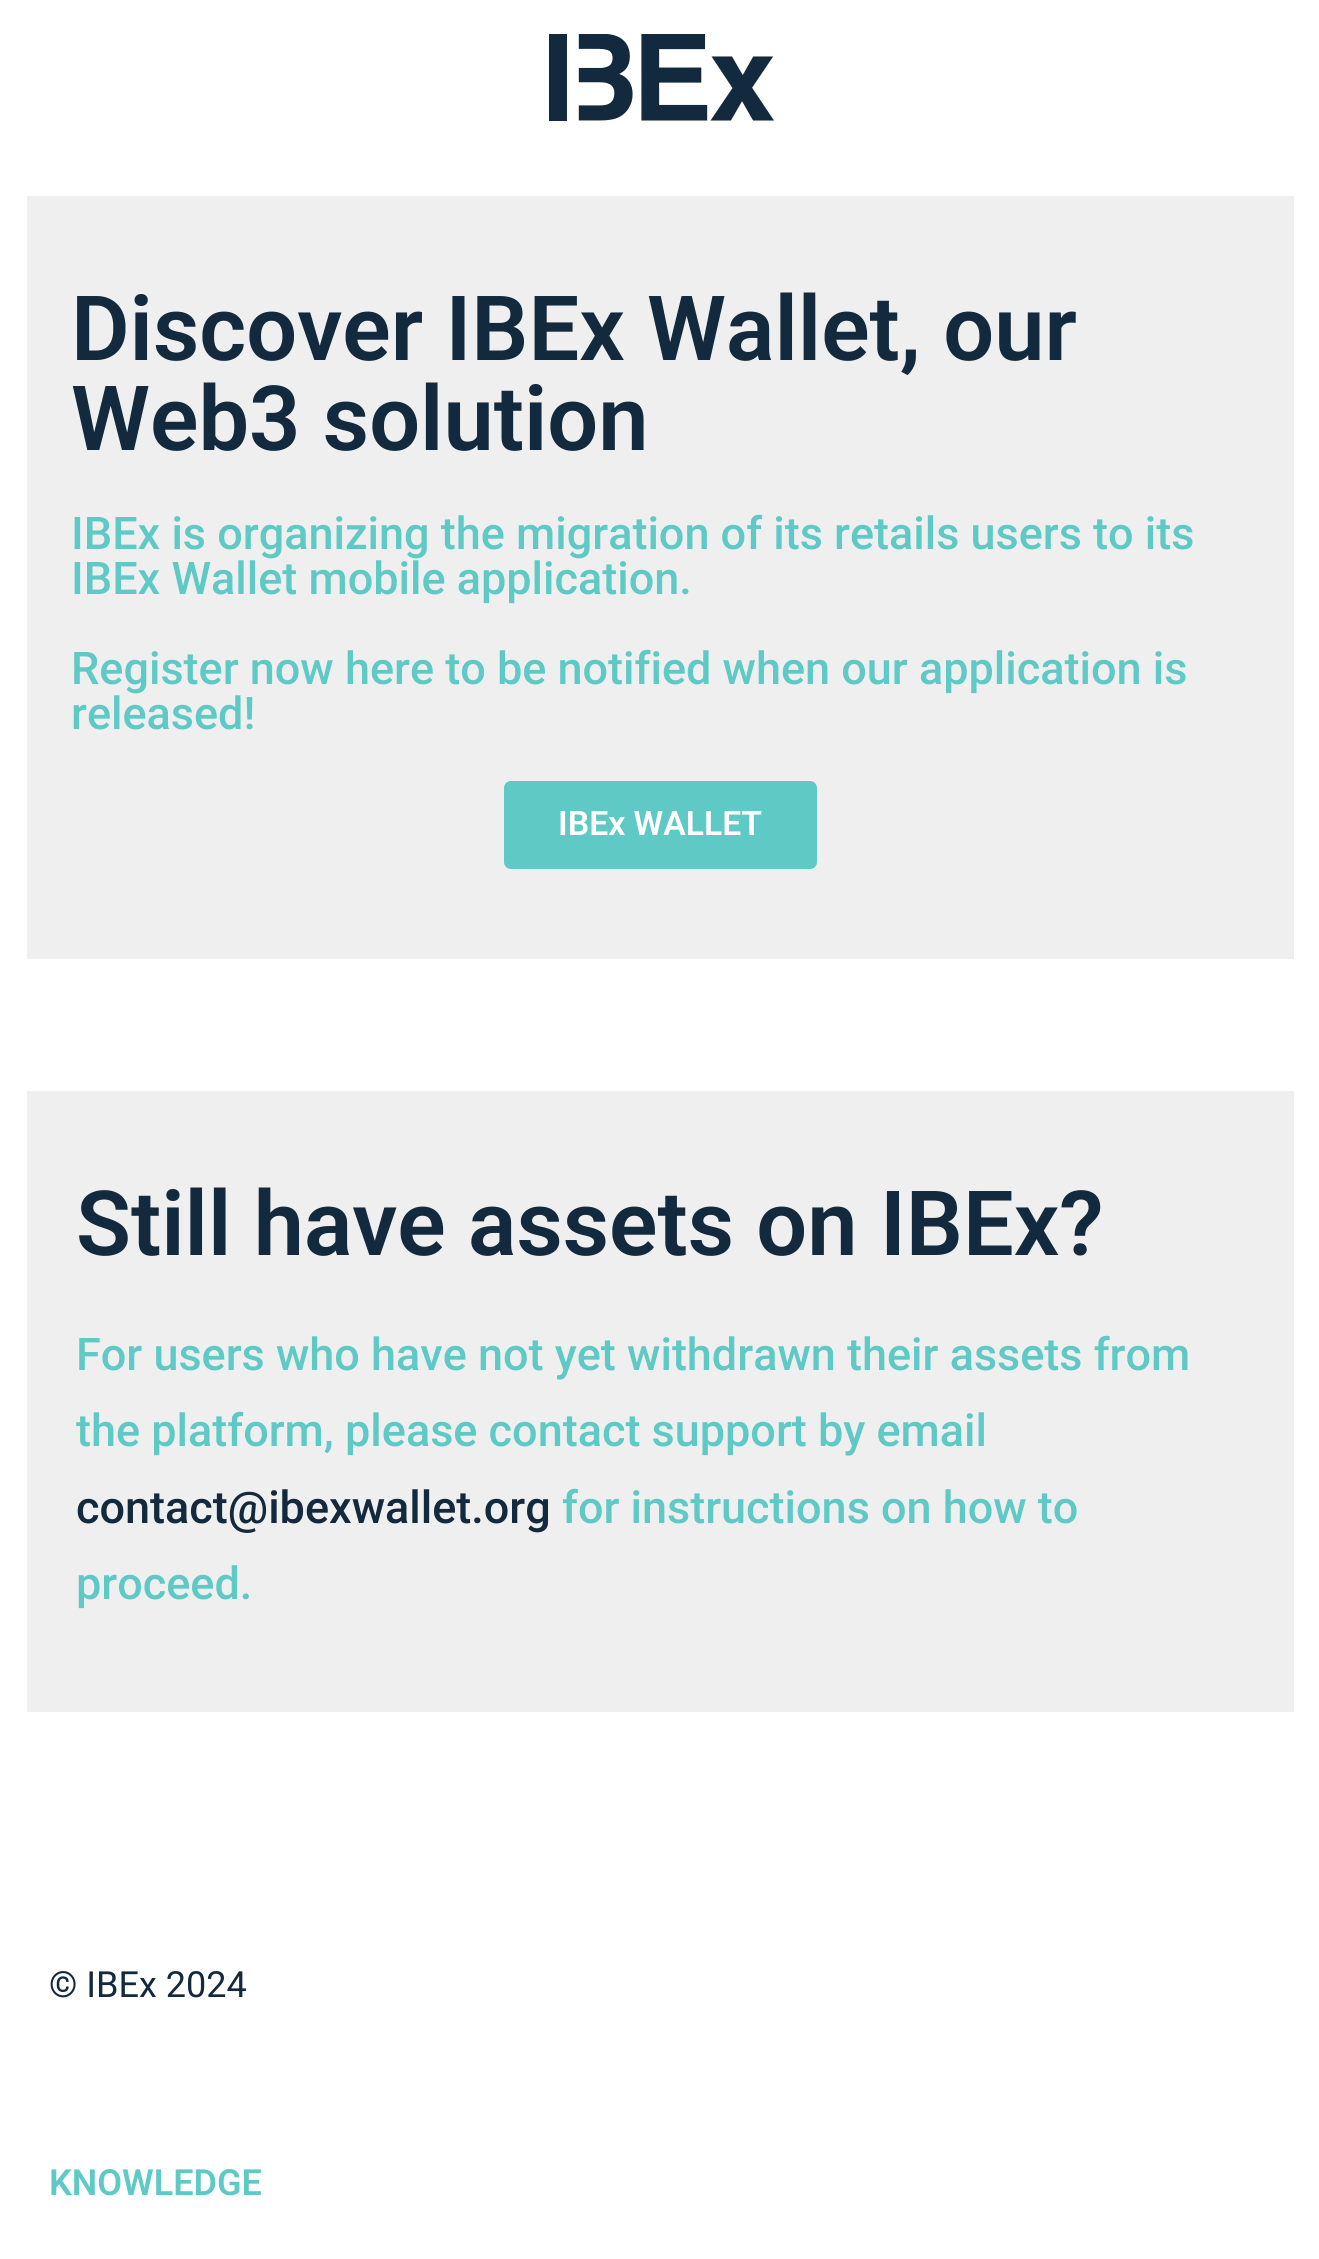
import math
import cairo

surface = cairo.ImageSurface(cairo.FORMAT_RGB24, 1319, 2259)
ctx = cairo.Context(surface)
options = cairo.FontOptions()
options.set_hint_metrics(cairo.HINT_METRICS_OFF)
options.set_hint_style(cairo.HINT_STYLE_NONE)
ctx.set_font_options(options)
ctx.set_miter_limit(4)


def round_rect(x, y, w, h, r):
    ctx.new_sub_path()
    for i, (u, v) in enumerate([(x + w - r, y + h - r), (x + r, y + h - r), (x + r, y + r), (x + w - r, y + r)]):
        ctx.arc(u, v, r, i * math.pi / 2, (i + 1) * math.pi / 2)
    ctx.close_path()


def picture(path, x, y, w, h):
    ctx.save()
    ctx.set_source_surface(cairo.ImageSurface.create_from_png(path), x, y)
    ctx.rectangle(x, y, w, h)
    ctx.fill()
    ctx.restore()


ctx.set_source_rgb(1, 1, 1)
ctx.paint()
picture("img1.png", 549, 34, 225, 87)
ctx.set_source_rgb(0.937, 0.937, 0.937)
ctx.rectangle(27, 196, 1267, 763)
ctx.fill()
ctx.select_font_face("Roboto SemiBold")
ctx.set_font_size(90)
ctx.set_source_rgb(0.075, 0.161, 0.239)
ctx.move_to(71, 360)
ctx.show_text("Discover IBEx Wallet, our")
ctx.move_to(71, 450)
ctx.show_text("Web3 solution")
ctx.select_font_face("Roboto Medium")
ctx.set_font_size(45)
ctx.set_source_rgb(0.369, 0.788, 0.773)
ctx.move_to(71, 549)
ctx.show_text("IBEx is organizing the migration of its retails users to its")
ctx.move_to(71, 594)
ctx.show_text("IBEx Wallet mobile application.")
ctx.move_to(71, 684)
ctx.show_text("Register now here to be notified when our application is")
ctx.move_to(71, 729)
ctx.show_text("released!")
round_rect(504, 781, 313, 88, 7)
ctx.fill()
ctx.select_font_face("Roboto SemiBold")
ctx.set_font_size(33.75)
ctx.set_source_rgb(1, 1, 1)
ctx.move_to(558, 835)
ctx.show_text("IBEx WALLET")
ctx.set_source_rgb(0.937, 0.937, 0.937)
ctx.rectangle(27, 1091, 1267, 621)
ctx.fill()
ctx.set_font_size(90)
ctx.set_source_rgb(0.075, 0.161, 0.239)
ctx.move_to(76, 1255)
ctx.show_text("Still have assets on IBEx?")
ctx.select_font_face("Roboto Medium")
ctx.set_font_size(45)
ctx.set_source_rgb(0.369, 0.788, 0.773)
ctx.move_to(76, 1370)
ctx.show_text("For users who have not yet withdrawn their assets from")
ctx.move_to(76, 1446)
ctx.show_text("the platform, please contact support by email")
ctx.set_source_rgb(0.075, 0.161, 0.239)
ctx.move_to(76, 1523)
ctx.show_text("contact@ibexwallet.org")
ctx.set_source_rgb(0.369, 0.788, 0.773)
ctx.move_to(562, 1523)
ctx.show_text("for instructions on how to")
ctx.move_to(76, 1599)
ctx.show_text("proceed.")
ctx.select_font_face("Roboto")
ctx.set_font_size(36)
ctx.set_source_rgb(0.075, 0.161, 0.239)
ctx.move_to(49, 1997)
ctx.show_text("© IBEx 2024")
ctx.select_font_face("Roboto SemiBold")
ctx.set_source_rgb(0.369, 0.788, 0.773)
ctx.move_to(49, 2195)
ctx.show_text("KNOWLEDGE")
surface.write_to_png("page.png")
